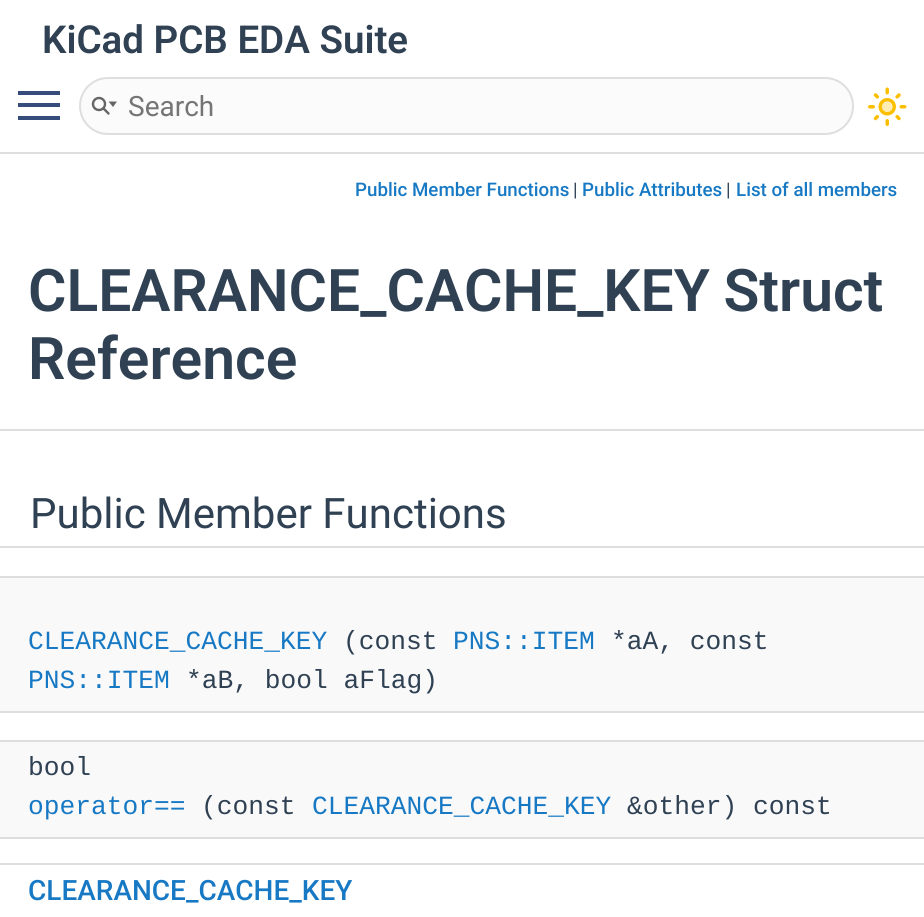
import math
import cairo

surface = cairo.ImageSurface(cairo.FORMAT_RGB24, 924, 917)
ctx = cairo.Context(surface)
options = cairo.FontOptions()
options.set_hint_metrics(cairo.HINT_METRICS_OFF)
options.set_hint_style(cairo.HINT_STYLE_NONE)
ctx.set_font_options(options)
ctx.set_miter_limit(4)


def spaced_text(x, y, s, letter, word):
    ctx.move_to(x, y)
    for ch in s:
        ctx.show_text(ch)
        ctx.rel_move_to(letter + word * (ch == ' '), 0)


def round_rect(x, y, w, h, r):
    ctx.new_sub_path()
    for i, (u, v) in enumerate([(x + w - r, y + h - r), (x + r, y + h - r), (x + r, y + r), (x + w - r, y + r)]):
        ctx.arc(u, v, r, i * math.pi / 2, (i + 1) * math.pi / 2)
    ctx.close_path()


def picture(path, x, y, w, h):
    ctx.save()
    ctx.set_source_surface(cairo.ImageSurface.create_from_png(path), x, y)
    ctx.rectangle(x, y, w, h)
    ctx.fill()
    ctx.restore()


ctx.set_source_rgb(1, 1, 1)
ctx.paint()
ctx.set_source_rgb(0.871, 0.871, 0.871)
ctx.rectangle(0, 152, 924, 2)
ctx.fill()
ctx.select_font_face("Roboto SemiBold")
ctx.set_font_size(38.5)
ctx.set_source_rgb(0.184, 0.255, 0.325)
ctx.move_to(42, 53)
ctx.show_text("KiCad PCB EDA Suite")
ctx.set_source_rgb(0.212, 0.302, 0.486)
ctx.rectangle(18, 103, 42, 4)
ctx.fill()
ctx.rectangle(18, 91, 42, 4)
ctx.fill()
ctx.rectangle(18, 116, 42, 4)
ctx.fill()
ctx.set_source_rgb(0.984, 0.984, 0.984)
round_rect(80, 78, 773, 56, 28)
ctx.fill_preserve()
ctx.set_source_rgb(0.871, 0.871, 0.871)
ctx.stroke()
ctx.arc(99, 104, 6, 0, 2 * math.pi)
ctx.set_source_rgb(0.396, 0.396, 0.396)
ctx.set_line_width(2.4)
ctx.stroke()
ctx.new_path()
ctx.move_to(108.5, 101.5)
ctx.line_to(113, 107)
ctx.line_to(117, 101.5)
ctx.close_path()
ctx.fill()
ctx.new_path()
ctx.move_to(103.5, 108.5)
ctx.line_to(108.5, 113.5)
ctx.set_line_cap(cairo.LINE_CAP_ROUND)
ctx.stroke()
ctx.select_font_face("Roboto")
ctx.set_font_size(28)
ctx.set_source_rgb(0.459, 0.459, 0.459)
ctx.move_to(128, 116)
ctx.show_text("Search")
picture("img1.png", 868, 87, 39, 39)
ctx.set_source_rgb(0.871, 0.871, 0.871)
ctx.rectangle(0, 429, 924, 2)
ctx.fill()
ctx.select_font_face("Roboto Medium")
ctx.set_font_size(18.75)
ctx.set_source_rgb(0.09, 0.475, 0.769)
ctx.move_to(355, 196)
ctx.show_text("Public Member Functions")
ctx.select_font_face("Roboto")
ctx.set_source_rgb(0.184, 0.255, 0.325)
ctx.move_to(573, 196)
ctx.show_text("|")
ctx.select_font_face("Roboto Medium")
ctx.set_source_rgb(0.09, 0.475, 0.769)
ctx.move_to(582, 196)
ctx.show_text("Public Attributes")
ctx.select_font_face("Roboto")
ctx.set_source_rgb(0.184, 0.255, 0.325)
ctx.move_to(726, 196)
ctx.show_text("|")
ctx.select_font_face("Roboto Medium")
ctx.set_source_rgb(0.09, 0.475, 0.769)
ctx.move_to(736, 196)
ctx.show_text("List of all members")
ctx.select_font_face("Roboto SemiBold")
ctx.set_font_size(58.75)
ctx.set_source_rgb(0.184, 0.255, 0.325)
spaced_text(28, 311, "CLEARANCE_CACHE_KEY Struct", 0, -1)
ctx.move_to(28, 379)
ctx.show_text("Reference")
ctx.set_source_rgb(0.871, 0.871, 0.871)
ctx.new_path()
ctx.move_to(-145, 478)
ctx.line_to(-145, 548)
ctx.line_to(719, 548)
ctx.line_to(719, 546)
ctx.line_to(30, 546)
ctx.line_to(30, 478)
ctx.close_path()
ctx.fill()
ctx.new_path()
ctx.move_to(205, 546)
ctx.line_to(205, 548)
ctx.line_to(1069, 548)
ctx.line_to(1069, 478)
ctx.line_to(894, 478)
ctx.line_to(894, 546)
ctx.close_path()
ctx.fill()
ctx.set_source_rgb(1, 1, 1)
ctx.rectangle(0, 478, 30, 68)
ctx.fill()
ctx.rectangle(894, 478, 30, 68)
ctx.fill()
ctx.select_font_face("Roboto")
ctx.set_font_size(42)
ctx.set_source_rgb(0.184, 0.255, 0.325)
ctx.move_to(30, 528)
ctx.show_text("Public Member Functions")
ctx.set_source_rgb(0.973, 0.976, 0.98)
ctx.rectangle(0, 578, 924, 133)
ctx.fill()
ctx.set_source_rgb(0.871, 0.871, 0.871)
ctx.rectangle(0, 576, 924, 2)
ctx.fill()
ctx.rectangle(0, 711, 924, 2)
ctx.fill()
ctx.select_font_face("Liberation Mono")
ctx.set_font_size(26.25)
ctx.set_source_rgb(0.09, 0.475, 0.769)
ctx.move_to(28, 649)
ctx.show_text("CLEARANCE_CACHE_KEY")
ctx.set_source_rgb(0.184, 0.255, 0.325)
ctx.move_to(343, 649)
ctx.show_text("(const")
ctx.set_source_rgb(0.09, 0.475, 0.769)
ctx.move_to(453, 649)
ctx.show_text("PNS::ITEM")
ctx.set_source_rgb(0.184, 0.255, 0.325)
ctx.move_to(611, 649)
ctx.show_text("*aA, const")
ctx.set_source_rgb(0.09, 0.475, 0.769)
ctx.move_to(28, 688)
ctx.show_text("PNS::ITEM")
ctx.set_source_rgb(0.184, 0.255, 0.325)
ctx.move_to(186, 688)
ctx.show_text("*aB, bool aFlag)")
ctx.set_source_rgb(0.973, 0.976, 0.98)
ctx.rectangle(0, 742, 924, 95)
ctx.fill()
ctx.set_source_rgb(0.871, 0.871, 0.871)
ctx.rectangle(0, 740, 924, 2)
ctx.fill()
ctx.set_source_rgb(0.184, 0.255, 0.325)
ctx.move_to(28, 775)
ctx.show_text("bool")
ctx.set_source_rgb(0.871, 0.871, 0.871)
ctx.rectangle(0, 837, 924, 2)
ctx.fill()
ctx.set_source_rgb(0.09, 0.475, 0.769)
ctx.move_to(28, 814)
ctx.show_text("operator==")
ctx.set_source_rgb(0.184, 0.255, 0.325)
ctx.move_to(201, 814)
ctx.show_text("(const")
ctx.set_source_rgb(0.09, 0.475, 0.769)
ctx.move_to(312, 814)
ctx.show_text("CLEARANCE_CACHE_KEY")
ctx.set_source_rgb(0.184, 0.255, 0.325)
ctx.move_to(627, 814)
ctx.show_text("&other) const")
ctx.set_source_rgb(0.871, 0.871, 0.871)
ctx.rectangle(0, 863, 924, 2)
ctx.fill()
ctx.select_font_face("Roboto Medium")
ctx.set_font_size(28)
ctx.set_source_rgb(0.09, 0.475, 0.769)
ctx.move_to(28, 900)
ctx.show_text("CLEARANCE_CACHE_KEY")
surface.write_to_png("page.png")
